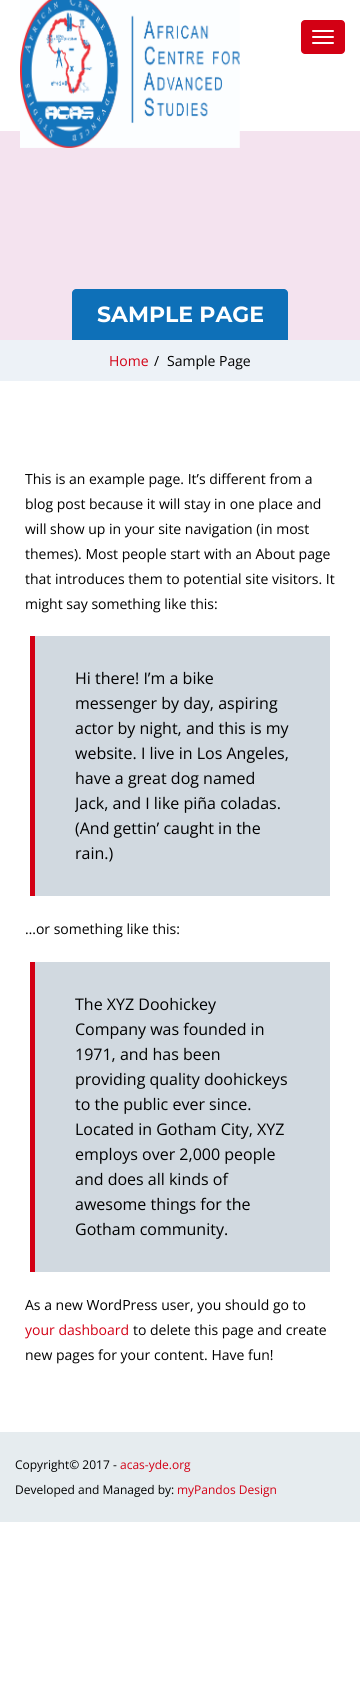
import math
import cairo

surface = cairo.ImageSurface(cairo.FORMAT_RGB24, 360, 1708)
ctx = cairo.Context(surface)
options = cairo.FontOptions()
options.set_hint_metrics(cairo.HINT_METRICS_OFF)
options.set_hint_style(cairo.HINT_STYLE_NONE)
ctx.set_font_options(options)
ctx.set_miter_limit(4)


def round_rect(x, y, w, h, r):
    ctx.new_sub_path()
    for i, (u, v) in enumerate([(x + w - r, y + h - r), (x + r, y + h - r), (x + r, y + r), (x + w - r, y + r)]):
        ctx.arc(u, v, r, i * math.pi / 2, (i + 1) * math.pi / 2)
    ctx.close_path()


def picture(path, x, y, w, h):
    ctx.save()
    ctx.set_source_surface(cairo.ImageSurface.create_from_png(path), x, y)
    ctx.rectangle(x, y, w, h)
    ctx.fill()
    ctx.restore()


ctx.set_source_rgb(1, 1, 1)
ctx.paint()
ctx.set_source_rgb(0.957, 0.89, 0.937)
ctx.rectangle(0, 131, 360, 209)
ctx.fill()
picture("img1.png", 20, 0, 220, 148)
ctx.set_source_rgb(0.827, 0, 0.082)
round_rect(301, 20, 44, 34, 4)
ctx.fill()
ctx.set_source_rgb(1, 1, 1)
round_rect(312, 30, 22, 2, 1)
ctx.fill()
round_rect(312, 36, 22, 2, 1)
ctx.fill()
round_rect(312, 42, 22, 2, 1)
ctx.fill()
ctx.set_source_rgb(0.055, 0.439, 0.722)
ctx.new_path()
ctx.move_to(76, 289)
ctx.line_to(284, 289)
ctx.curve_to(286, 289, 288, 291, 288, 293)
ctx.line_to(288, 340)
ctx.line_to(72, 340)
ctx.line_to(72, 293)
ctx.curve_to(72, 291, 74, 289, 76, 289)
ctx.close_path()
ctx.fill()
ctx.select_font_face("Montserrat", cairo.FONT_SLANT_NORMAL, cairo.FONT_WEIGHT_BOLD)
ctx.set_font_size(22)
ctx.set_source_rgb(1, 1, 1)
ctx.move_to(97, 322)
ctx.show_text("SAMPLE PAGE")
ctx.set_source_rgb(0.929, 0.949, 0.965)
ctx.rectangle(0, 340, 360, 41)
ctx.fill()
ctx.select_font_face("Open Sans")
ctx.set_font_size(14)
ctx.set_source_rgb(0.827, 0, 0.082)
ctx.move_to(109, 366)
ctx.show_text("Home")
ctx.set_source_rgb(0, 0, 0)
ctx.move_to(154, 366)
ctx.show_text("/")
ctx.move_to(167, 366)
ctx.show_text("Sample Page")
ctx.move_to(25, 484)
ctx.show_text("This is an example page. It’s different from a")
ctx.move_to(25, 509)
ctx.show_text("blog post because it will stay in one place and")
ctx.move_to(25, 534)
ctx.show_text("will show up in your site navigation (in most")
ctx.move_to(25, 559)
ctx.show_text("themes). Most people start with an About page")
ctx.move_to(25, 584)
ctx.show_text("that introduces them to potential site visitors. It")
ctx.move_to(25, 609)
ctx.show_text("might say something like this:")
ctx.set_source_rgb(0.82, 0.851, 0.878)
ctx.rectangle(35, 636, 295, 260)
ctx.fill()
ctx.set_source_rgb(0.827, 0, 0.082)
ctx.rectangle(30, 636, 5, 260)
ctx.fill()
ctx.set_font_size(16)
ctx.set_source_rgb(0, 0, 0)
ctx.move_to(75, 684)
ctx.show_text("Hi there! I’m a bike")
ctx.move_to(75, 709)
ctx.show_text("messenger by day, aspiring")
ctx.move_to(75, 734)
ctx.show_text("actor by night, and this is my")
ctx.move_to(75, 759)
ctx.show_text("website. I live in Los Angeles,")
ctx.move_to(75, 784)
ctx.show_text("have a great dog named")
ctx.save()
ctx.rectangle(75, 666, 215, 200)
ctx.clip()
ctx.move_to(75, 809)
ctx.show_text("Jack, and I like piña coladas.")
ctx.restore()
ctx.move_to(75, 834)
ctx.show_text("(And gettin’ caught in the")
ctx.move_to(75, 859)
ctx.show_text("rain.)")
ctx.set_font_size(14)
ctx.move_to(25, 934)
ctx.show_text("…or something like this:")
ctx.set_source_rgb(0.82, 0.851, 0.878)
ctx.rectangle(35, 962, 295, 310)
ctx.fill()
ctx.set_source_rgb(0.827, 0, 0.082)
ctx.rectangle(30, 962, 5, 310)
ctx.fill()
ctx.set_font_size(16)
ctx.set_source_rgb(0, 0, 0)
ctx.move_to(75, 1010)
ctx.show_text("The XYZ Doohickey")
ctx.move_to(75, 1035)
ctx.show_text("Company was founded in")
ctx.move_to(75, 1060)
ctx.show_text("1971, and has been")
ctx.move_to(75, 1085)
ctx.show_text("providing quality doohickeys")
ctx.move_to(75, 1110)
ctx.show_text("to the public ever since.")
ctx.move_to(75, 1135)
ctx.show_text("Located in Gotham City, XYZ")
ctx.move_to(75, 1160)
ctx.show_text("employs over 2,000 people")
ctx.move_to(75, 1185)
ctx.show_text("and does all kinds of")
ctx.move_to(75, 1210)
ctx.show_text("awesome things for the")
ctx.move_to(75, 1235)
ctx.show_text("Gotham community.")
ctx.set_font_size(14)
ctx.move_to(25, 1310)
ctx.show_text("As a new WordPress user, you should go to")
ctx.set_source_rgb(0.827, 0, 0.082)
ctx.move_to(25, 1335)
ctx.show_text("your dashboard")
ctx.set_source_rgb(0, 0, 0)
ctx.move_to(133, 1335)
ctx.show_text("to delete this page and create")
ctx.move_to(25, 1360)
ctx.show_text("new pages for your content. Have fun!")
ctx.set_source_rgb(0.902, 0.922, 0.937)
ctx.rectangle(0, 1432, 360, 90)
ctx.fill()
ctx.set_font_size(12)
ctx.set_source_rgb(0, 0, 0)
ctx.move_to(15, 1469)
ctx.show_text("Copyright© 2017 -")
ctx.set_source_rgb(0.827, 0, 0.082)
ctx.move_to(120, 1469)
ctx.show_text("acas-yde.org")
ctx.set_source_rgb(0, 0, 0)
ctx.move_to(15, 1494)
ctx.show_text("Developed and Managed by:")
ctx.set_source_rgb(0.827, 0, 0.082)
ctx.move_to(177, 1494)
ctx.show_text("myPandos Design")
surface.write_to_png("page.png")
